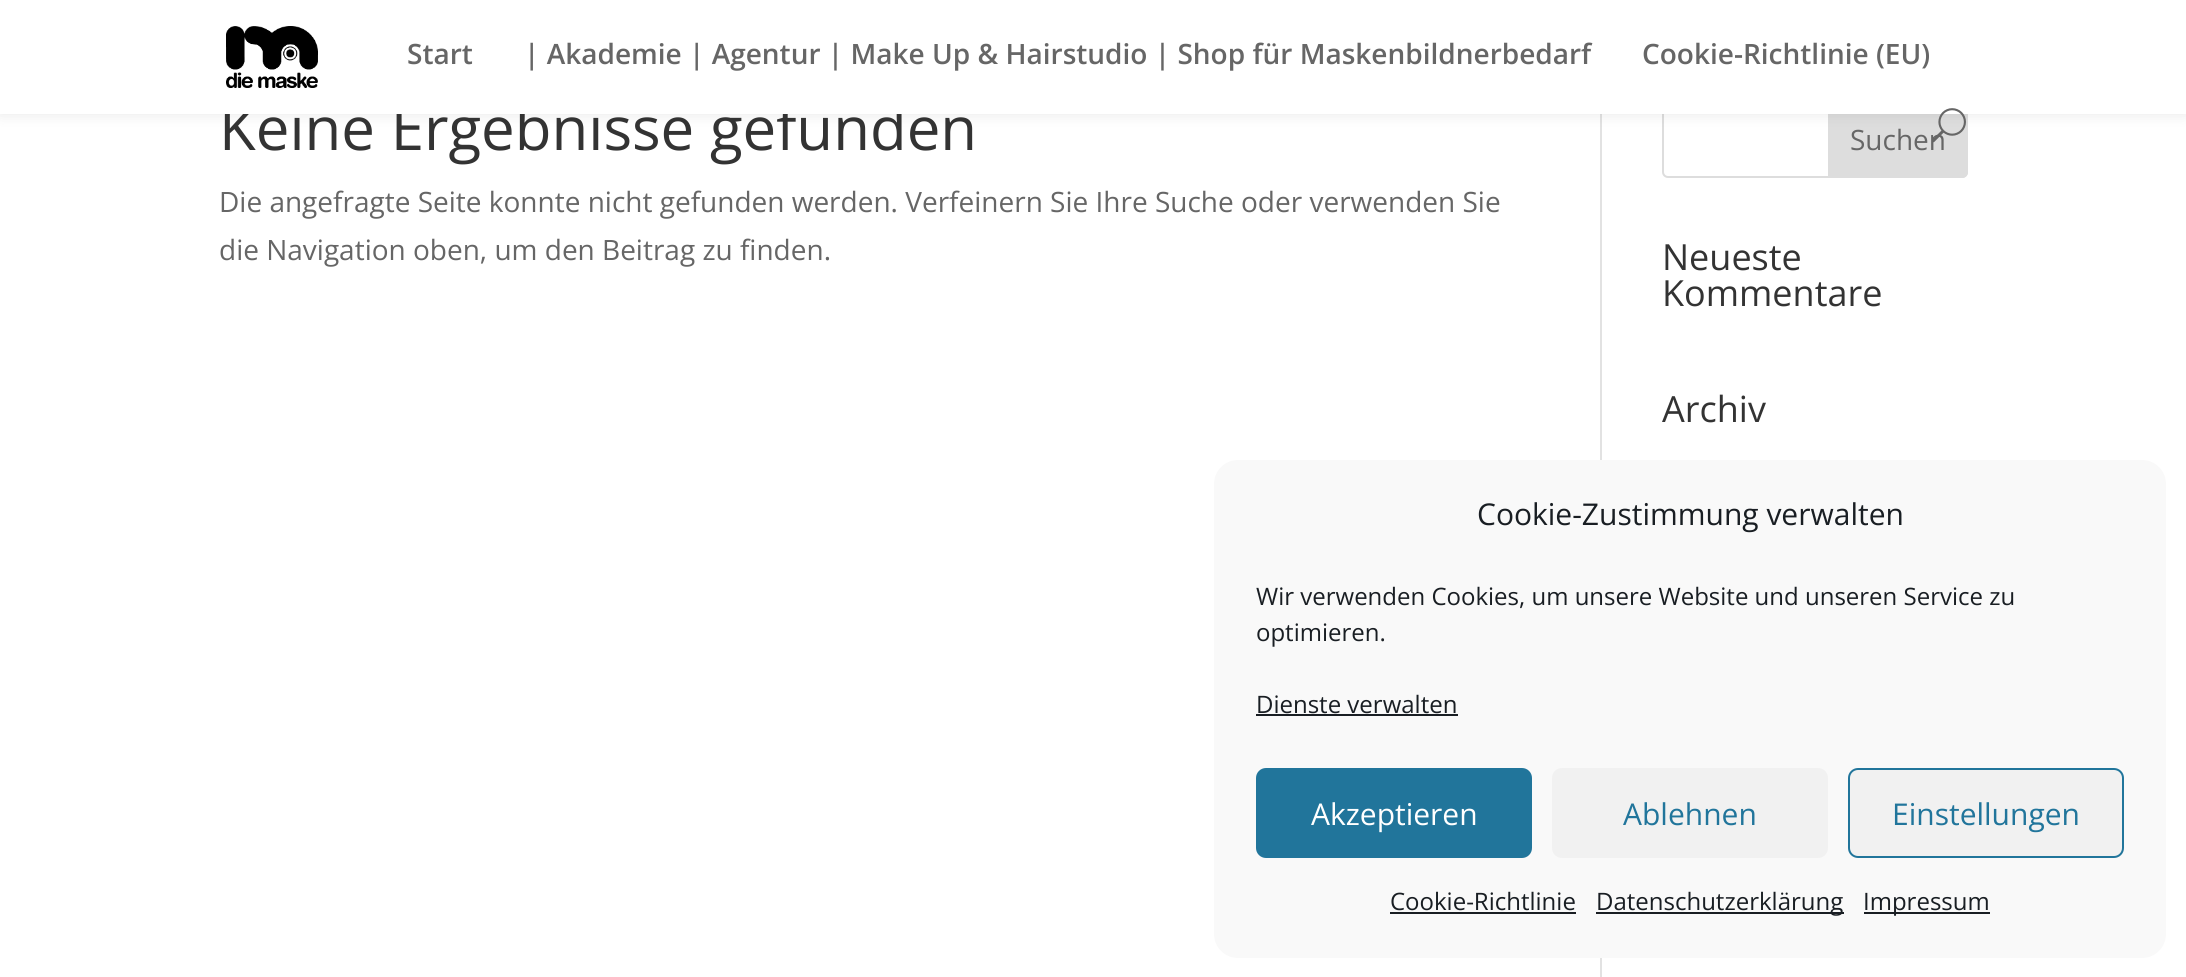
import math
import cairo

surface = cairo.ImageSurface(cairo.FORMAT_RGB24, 2186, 977)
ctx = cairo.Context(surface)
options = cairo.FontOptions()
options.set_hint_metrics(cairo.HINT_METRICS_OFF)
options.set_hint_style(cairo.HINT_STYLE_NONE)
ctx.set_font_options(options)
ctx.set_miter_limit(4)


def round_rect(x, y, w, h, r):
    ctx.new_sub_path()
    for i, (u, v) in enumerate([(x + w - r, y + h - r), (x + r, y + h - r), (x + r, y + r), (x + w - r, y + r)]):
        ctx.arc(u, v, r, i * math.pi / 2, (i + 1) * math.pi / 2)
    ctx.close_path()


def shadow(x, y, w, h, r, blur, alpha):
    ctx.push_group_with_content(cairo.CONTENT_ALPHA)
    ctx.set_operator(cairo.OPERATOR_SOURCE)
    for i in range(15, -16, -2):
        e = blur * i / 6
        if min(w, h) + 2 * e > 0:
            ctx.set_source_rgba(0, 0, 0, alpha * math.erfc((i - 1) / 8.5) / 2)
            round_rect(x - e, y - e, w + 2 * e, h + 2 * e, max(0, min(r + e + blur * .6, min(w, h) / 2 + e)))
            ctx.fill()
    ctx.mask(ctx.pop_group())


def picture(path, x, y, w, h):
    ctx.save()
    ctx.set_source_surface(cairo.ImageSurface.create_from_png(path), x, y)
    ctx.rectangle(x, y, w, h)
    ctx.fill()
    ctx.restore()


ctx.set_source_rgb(1, 1, 1)
ctx.paint()
round_rect(1663, 99, 304, 78, 5)
ctx.set_source_rgb(0.867, 0.867, 0.867)
ctx.stroke()
ctx.new_path()
ctx.move_to(1829, 99)
ctx.line_to(1962, 99)
ctx.curve_to(1965, 99, 1967, 101, 1967, 104)
ctx.line_to(1967, 172)
ctx.curve_to(1967, 175, 1965, 177, 1962, 177)
ctx.line_to(1829, 177)
ctx.close_path()
ctx.fill_preserve()
ctx.stroke()
ctx.set_source_rgb(0.886, 0.886, 0.886)
ctx.rectangle(1600, 114, 2, 863)
ctx.fill()
ctx.set_source_rgb(0, 0, 0)
shadow(0, 0, 2186, 114, 0, 7, 0.1)
ctx.select_font_face("Open Sans")
ctx.set_font_size(60)
ctx.set_source_rgb(0.2, 0.2, 0.2)
ctx.move_to(219, 150)
ctx.show_text("Keine Ergebnisse gefunden")
ctx.set_source_rgb(1, 1, 1)
ctx.rectangle(0, 0, 2186, 114)
ctx.fill()
picture("img1.png", 226, 26, 92, 62)
ctx.select_font_face("Open Sans SemiBold")
ctx.set_font_size(28)
ctx.set_source_rgb(0.4, 0.4, 0.4)
ctx.move_to(407, 64)
ctx.show_text("Start")
ctx.move_to(524, 64)
ctx.show_text("| Akademie | Agentur | Make Up & Hairstudio | Shop für Maskenbildnerbedarf")
ctx.move_to(1642, 64)
ctx.show_text("Cookie-Richtlinie (EU)")
ctx.select_font_face("Open Sans")
ctx.move_to(1850, 150)
ctx.show_text("Suchen")
picture("img2.png", 1933, 108, 33, 35)
ctx.move_to(219, 212)
ctx.show_text("Die angefragte Seite konnte nicht gefunden werden. Verfeinern Sie Ihre Suche oder verwenden Sie")
ctx.move_to(219, 260)
ctx.show_text("die Navigation oben, um den Beitrag zu finden.")
ctx.set_font_size(36)
ctx.set_source_rgb(0.2, 0.2, 0.2)
ctx.move_to(1662, 270)
ctx.show_text("Neueste")
ctx.move_to(1662, 306)
ctx.show_text("Kommentare")
ctx.move_to(1662, 422)
ctx.show_text("Archiv")
ctx.set_source_rgb(0.976, 0.976, 0.976)
round_rect(1214, 460, 952, 498, 24)
ctx.fill()
ctx.set_font_size(30)
ctx.set_source_rgb(0.098, 0.118, 0.137)
ctx.move_to(1477, 525)
ctx.show_text("Cookie-Zustimmung verwalten")
ctx.set_font_size(24)
ctx.move_to(1256, 605)
ctx.show_text("Wir verwenden Cookies, um unsere Website und unseren Service zu")
ctx.move_to(1256, 641)
ctx.show_text("optimieren.")
ctx.move_to(1256, 713)
ctx.show_text("Dienste verwalten")
ctx.rectangle(1256, 714, 202, 2)
ctx.fill()
ctx.set_source_rgb(0.129, 0.459, 0.608)
round_rect(1257, 769, 274, 88, 9)
ctx.fill_preserve()
ctx.stroke()
ctx.set_font_size(30)
ctx.set_source_rgb(1, 1, 1)
ctx.move_to(1311, 825)
ctx.show_text("Akzeptieren")
ctx.set_source_rgb(0.945, 0.945, 0.945)
round_rect(1552, 768, 276, 90, 10)
ctx.fill()
ctx.set_source_rgb(0.129, 0.459, 0.608)
ctx.move_to(1623, 825)
ctx.show_text("Ablehnen")
ctx.set_source_rgb(0.945, 0.945, 0.945)
round_rect(1849, 769, 274, 88, 9)
ctx.fill_preserve()
ctx.set_source_rgb(0.129, 0.459, 0.608)
ctx.stroke()
ctx.move_to(1892, 825)
ctx.show_text("Einstellungen")
ctx.set_font_size(24)
ctx.set_source_rgb(0.098, 0.118, 0.137)
ctx.move_to(1390, 910)
ctx.show_text("Cookie-Richtlinie")
ctx.rectangle(1390, 912, 186, 2)
ctx.fill()
ctx.rectangle(1596, 912, 248, 2)
ctx.fill()
ctx.move_to(1596, 910)
ctx.show_text("Datenschutzerklärung")
ctx.rectangle(1864, 912, 126, 2)
ctx.fill()
ctx.move_to(1863, 910)
ctx.show_text("Impressum")
surface.write_to_png("page.png")
